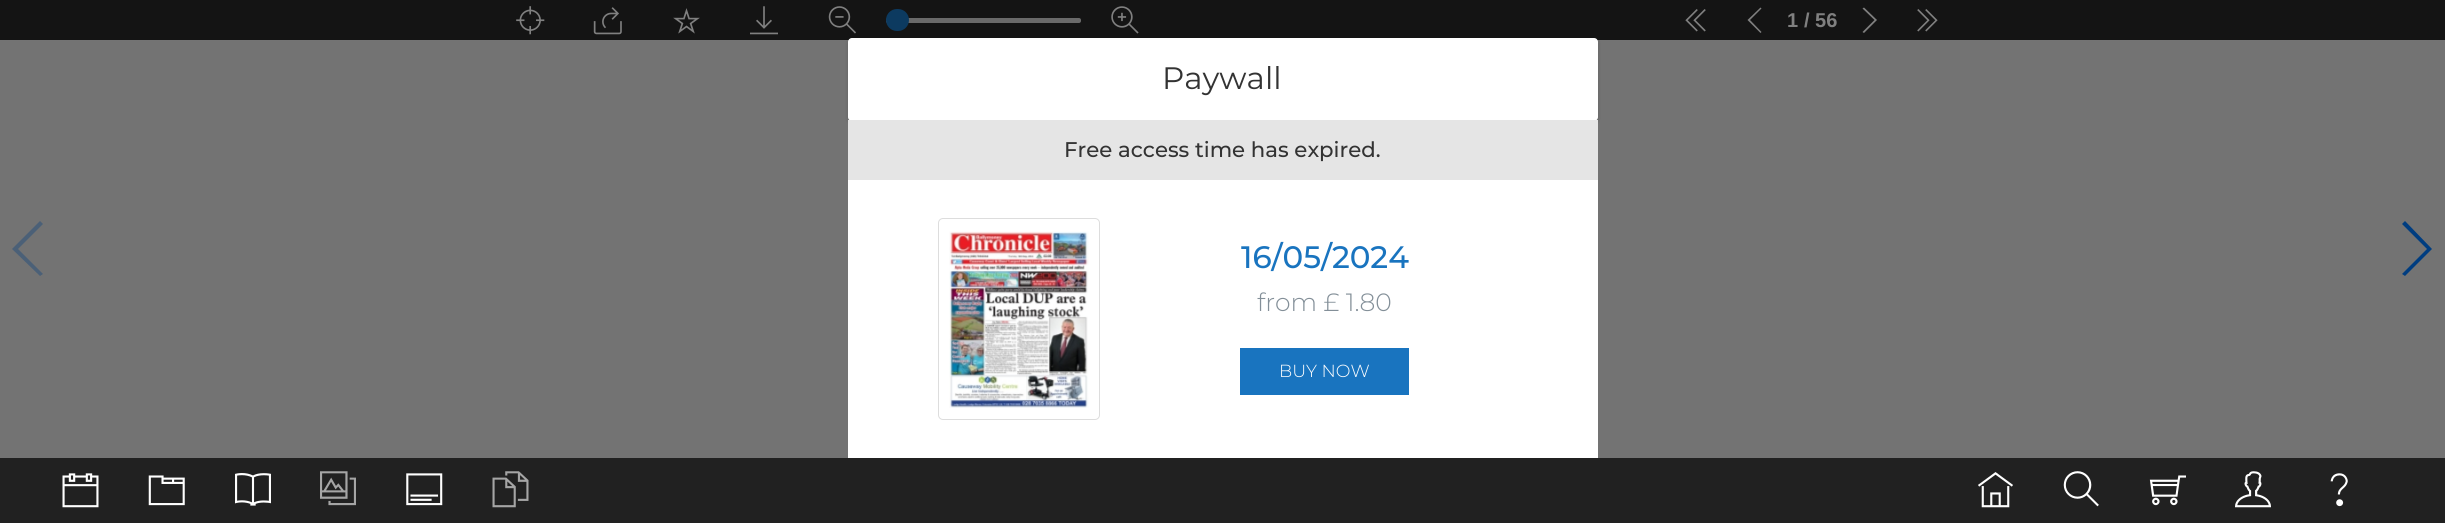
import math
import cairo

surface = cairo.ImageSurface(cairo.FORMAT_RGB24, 2445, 523)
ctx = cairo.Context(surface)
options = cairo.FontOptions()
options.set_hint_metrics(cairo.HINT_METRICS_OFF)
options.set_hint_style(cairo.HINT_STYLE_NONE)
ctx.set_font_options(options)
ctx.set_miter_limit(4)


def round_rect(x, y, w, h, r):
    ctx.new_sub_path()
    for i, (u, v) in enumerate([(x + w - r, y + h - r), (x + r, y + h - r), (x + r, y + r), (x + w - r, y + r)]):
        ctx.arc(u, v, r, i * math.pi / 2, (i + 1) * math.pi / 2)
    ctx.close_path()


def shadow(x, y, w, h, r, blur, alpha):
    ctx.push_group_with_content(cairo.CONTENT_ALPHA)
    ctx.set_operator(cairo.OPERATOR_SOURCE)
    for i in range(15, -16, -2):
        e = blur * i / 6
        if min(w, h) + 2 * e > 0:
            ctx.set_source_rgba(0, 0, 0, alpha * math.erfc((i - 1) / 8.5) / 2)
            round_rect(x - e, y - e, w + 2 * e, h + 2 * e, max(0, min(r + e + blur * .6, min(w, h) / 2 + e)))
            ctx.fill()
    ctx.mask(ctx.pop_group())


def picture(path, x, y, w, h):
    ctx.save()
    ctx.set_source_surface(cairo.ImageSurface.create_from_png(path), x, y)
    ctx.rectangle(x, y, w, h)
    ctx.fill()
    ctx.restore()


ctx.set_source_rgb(0.451, 0.451, 0.451)
ctx.paint()
ctx.set_source_rgb(0.082, 0.082, 0.082)
ctx.rectangle(0, 0, 2445, 40)
ctx.fill()
picture("img1.png", 516, 6, 29, 29)
picture("img2.png", 593, 7, 29, 28)
picture("img3.png", 673, 8, 27, 26)
picture("img4.png", 750, 6, 28, 29)
picture("img5.png", 828, 6, 28, 28)
ctx.set_source_rgb(0.416, 0.416, 0.416)
round_rect(886, 18, 195, 5, 2)
ctx.fill()
ctx.set_source_rgb(0.047, 0.227, 0.376)
round_rect(886, 9, 23, 22, 11)
ctx.fill()
picture("img6.png", 1111, 6, 28, 28)
picture("img7.png", 1685, 9, 21, 23)
ctx.set_source_rgb(0.502, 0.502, 0.502)
ctx.new_path()
ctx.move_to(1750, 20)
ctx.line_to(1761.5, 32)
ctx.line_to(1760.5, 33)
ctx.line_to(1747.5, 20)
ctx.line_to(1760.5, 7.5)
ctx.line_to(1761.5, 8.5)
ctx.close_path()
ctx.fill()
ctx.select_font_face("Liberation Sans", cairo.FONT_SLANT_NORMAL, cairo.FONT_WEIGHT_BOLD)
ctx.set_font_size(20)
ctx.move_to(1787, 27)
ctx.show_text("1")
ctx.move_to(1804, 27)
ctx.show_text("/ 56")
ctx.new_path()
ctx.move_to(1877, 20)
ctx.line_to(1864, 33)
ctx.line_to(1862.5, 32)
ctx.line_to(1874.5, 20)
ctx.line_to(1862.5, 8.5)
ctx.line_to(1864, 7.5)
ctx.close_path()
ctx.fill()
picture("img8.png", 1917, 9, 21, 23)
ctx.set_source_rgb(0, 0, 0)
shadow(848, 39, 750, 84, 4, 2, 0.15)
ctx.set_source_rgb(1, 1, 1)
round_rect(848, 38, 750, 83, 4)
ctx.fill()
ctx.set_source_rgb(0.898, 0.898, 0.898)
ctx.rectangle(848, 120, 750, 60)
ctx.fill()
ctx.select_font_face("Montserrat")
ctx.set_font_size(31)
ctx.set_source_rgb(0.2, 0.2, 0.2)
ctx.move_to(1162, 89)
ctx.show_text("Paywall")
ctx.select_font_face("Montserrat Medium")
ctx.set_font_size(21.25)
ctx.move_to(1064, 157)
ctx.show_text("Free access time has expired.")
ctx.set_source_rgb(1, 1, 1)
ctx.rectangle(848, 180, 750, 278)
ctx.fill()
round_rect(938.5, 218.5, 161, 201, 4.5)
ctx.set_source_rgb(0.867, 0.867, 0.867)
ctx.set_line_width(1)
ctx.stroke()
picture("img9.png", 949, 231, 140, 177)
ctx.set_font_size(31)
ctx.set_source_rgb(0.098, 0.455, 0.749)
ctx.move_to(1241, 268)
ctx.show_text("16/05/2024")
ctx.select_font_face("Montserrat Light")
ctx.set_font_size(25)
ctx.set_source_rgb(0.514, 0.561, 0.596)
ctx.move_to(1257, 311)
ctx.show_text("from £ 1.80")
ctx.set_source_rgb(0.098, 0.455, 0.749)
ctx.rectangle(1240, 348, 169, 47)
ctx.fill()
ctx.set_font_size(17.5)
ctx.set_source_rgb(1, 1, 1)
ctx.move_to(1279, 377)
ctx.show_text("BUY NOW")
ctx.set_source_rgb(0.294, 0.376, 0.467)
ctx.new_path()
ctx.move_to(12, 249)
ctx.line_to(40, 221)
ctx.line_to(43, 224)
ctx.line_to(18, 249)
ctx.line_to(43, 274)
ctx.line_to(40, 276)
ctx.close_path()
ctx.fill()
ctx.set_source_rgb(0, 0.239, 0.502)
ctx.new_path()
ctx.move_to(2432, 249)
ctx.line_to(2405, 276)
ctx.line_to(2402, 274)
ctx.line_to(2427, 249)
ctx.line_to(2402, 224)
ctx.line_to(2405, 221)
ctx.close_path()
ctx.fill()
ctx.set_source_rgb(0.129, 0.129, 0.129)
ctx.rectangle(0, 458, 2445, 65)
ctx.fill()
picture("img10.png", 62, 473, 37, 35)
picture("img11.png", 148, 475, 37, 31)
picture("img12.png", 235, 473, 36, 33)
picture("img13.png", 320, 471, 36, 35)
picture("img14.png", 406, 473, 37, 33)
picture("img15.png", 492, 471, 37, 37)
picture("img16.png", 1978, 472, 35, 36)
picture("img17.png", 2063, 471, 36, 36)
picture("img18.png", 2149, 475, 37, 31)
picture("img19.png", 2235, 471, 36, 37)
picture("img20.png", 2330, 473, 18, 34)
surface.write_to_png("page.png")
